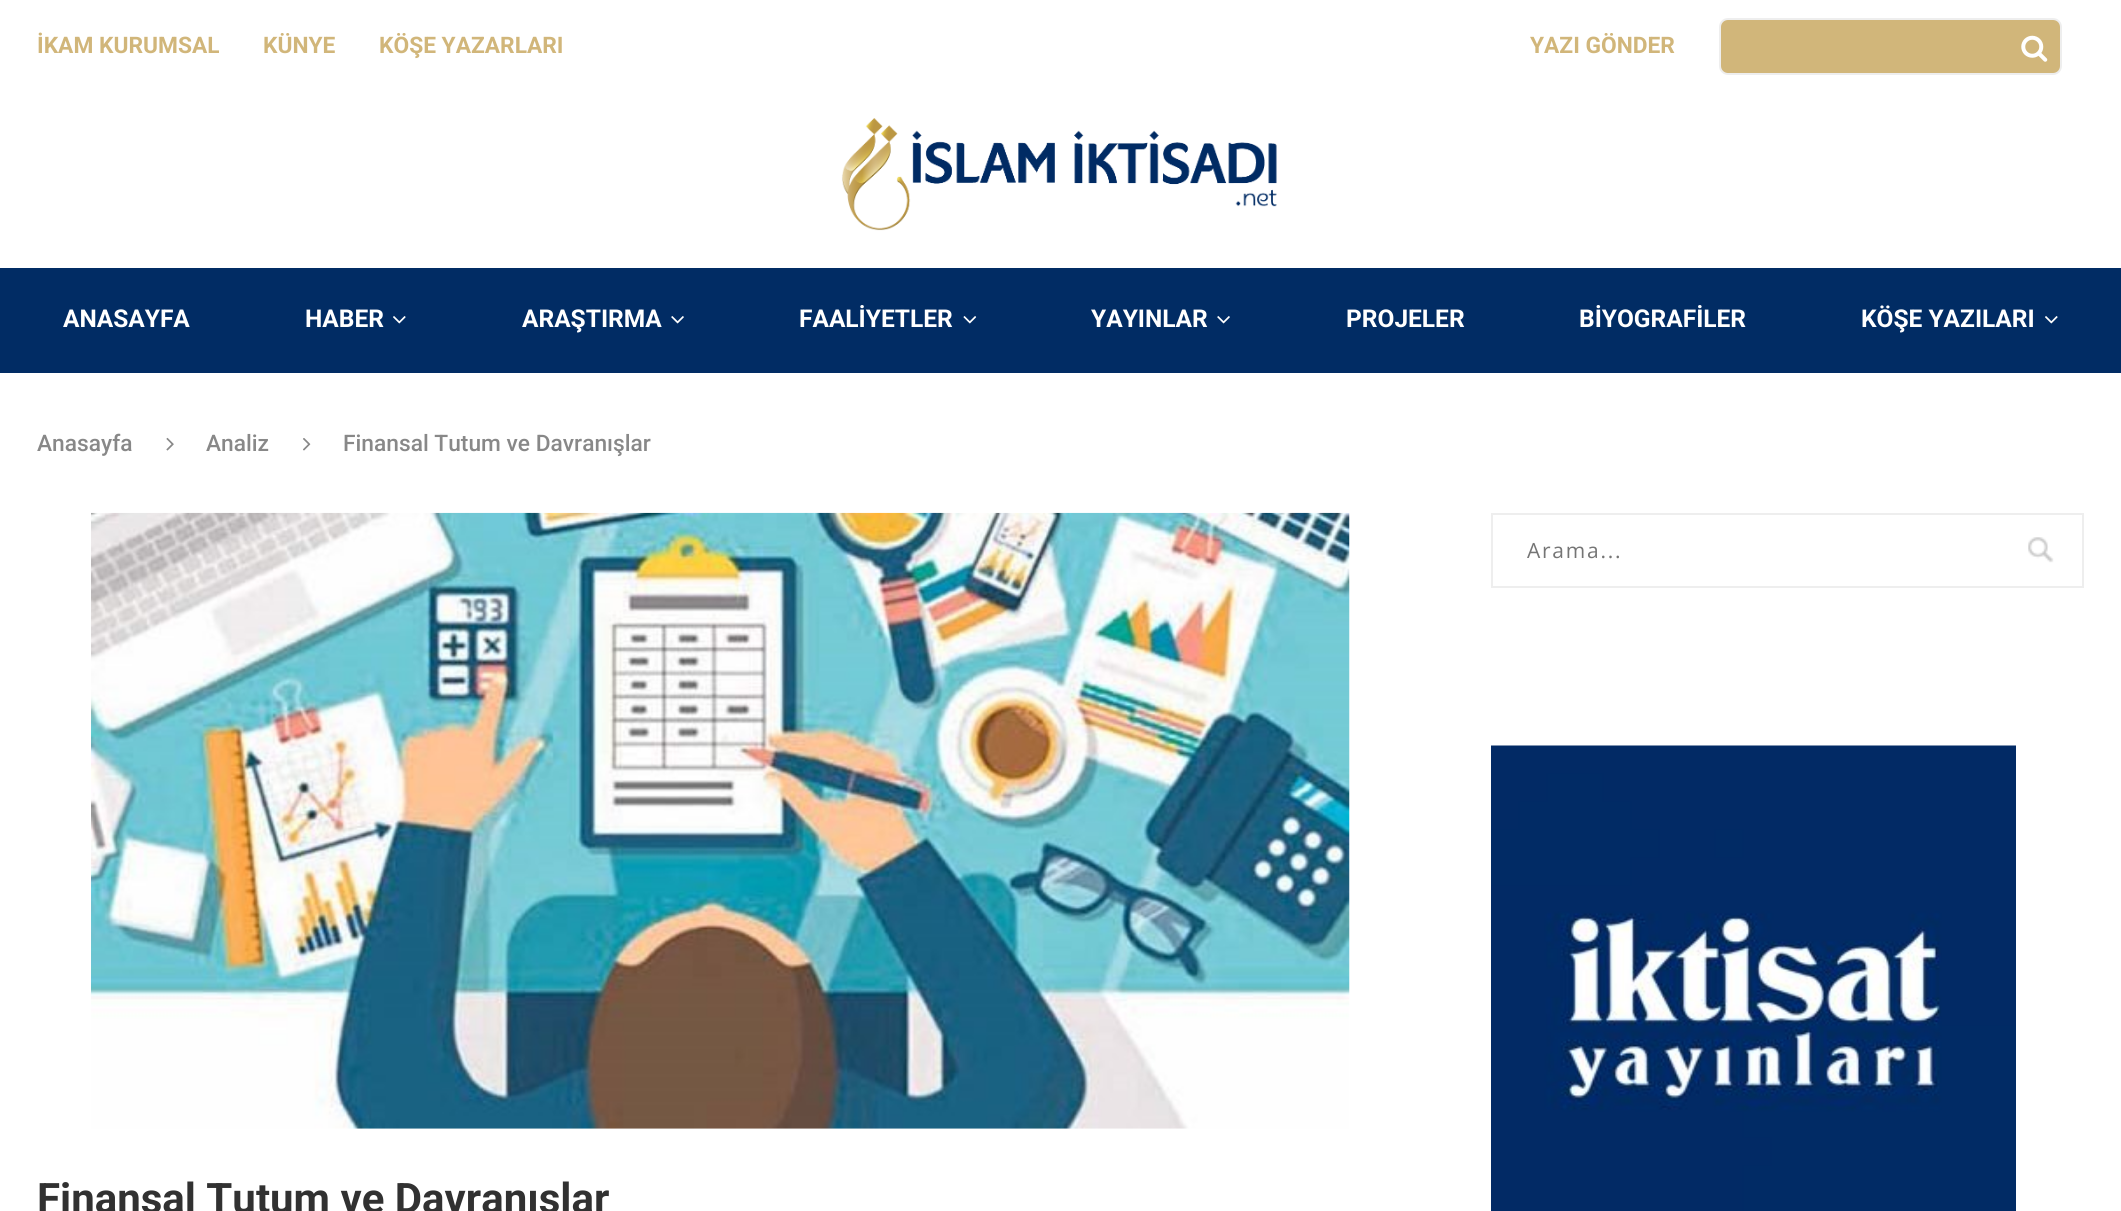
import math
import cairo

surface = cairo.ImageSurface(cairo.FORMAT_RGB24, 2121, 1211)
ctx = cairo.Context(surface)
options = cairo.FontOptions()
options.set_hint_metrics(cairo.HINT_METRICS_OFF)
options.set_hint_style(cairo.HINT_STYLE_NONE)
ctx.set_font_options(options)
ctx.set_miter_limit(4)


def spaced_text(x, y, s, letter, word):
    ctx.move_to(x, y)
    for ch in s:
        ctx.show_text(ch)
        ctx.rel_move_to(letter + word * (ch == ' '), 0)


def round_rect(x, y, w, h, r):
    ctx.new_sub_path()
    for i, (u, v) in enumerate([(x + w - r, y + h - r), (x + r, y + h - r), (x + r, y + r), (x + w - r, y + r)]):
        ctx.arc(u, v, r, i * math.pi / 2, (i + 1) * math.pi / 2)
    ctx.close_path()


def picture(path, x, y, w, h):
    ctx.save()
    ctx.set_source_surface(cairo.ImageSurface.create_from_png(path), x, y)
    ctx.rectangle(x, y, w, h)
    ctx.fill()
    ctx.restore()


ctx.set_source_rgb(1, 1, 1)
ctx.paint()
ctx.select_font_face("Roboto", cairo.FONT_SLANT_NORMAL, cairo.FONT_WEIGHT_BOLD)
ctx.set_font_size(22.75)
ctx.set_source_rgb(0.82, 0.714, 0.478)
ctx.move_to(37, 53)
ctx.show_text("İKAM KURUMSAL")
ctx.move_to(263, 53)
ctx.show_text("KÜNYE")
ctx.move_to(379, 53)
ctx.show_text("KÖŞE YAZARLARI")
ctx.move_to(1530, 53)
ctx.show_text("YAZI GÖNDER")
round_rect(1720, 19, 341, 55, 8)
ctx.fill_preserve()
ctx.set_source_rgb(0.933, 0.933, 0.933)
ctx.stroke()
picture("img1.png", 2021, 35, 27, 27)
picture("img2.png", 841, 118, 436, 113)
ctx.set_source_rgb(0.004, 0.173, 0.392)
ctx.rectangle(0, 268, 2121, 105)
ctx.fill()
ctx.set_font_size(24.5)
ctx.set_source_rgb(1, 1, 1)
ctx.move_to(63, 327)
ctx.show_text("ANASAYFA")
ctx.move_to(305, 327)
ctx.show_text("HABER")
picture("img3.png", 393, 316, 13, 8)
ctx.move_to(522, 327)
ctx.show_text("ARAŞTIRMA")
picture("img4.png", 671, 316, 13, 8)
ctx.move_to(799, 327)
ctx.show_text("FAALİYETLER")
picture("img5.png", 963, 316, 14, 8)
ctx.move_to(1091, 327)
ctx.show_text("YAYINLAR")
picture("img4.png", 1217, 316, 13, 8)
ctx.move_to(1346, 327)
ctx.show_text("PROJELER")
ctx.move_to(1579, 327)
ctx.show_text("BİYOGRAFİLER")
ctx.move_to(1861, 327)
ctx.show_text("KÖŞE YAZILARI")
picture("img3.png", 2045, 316, 13, 8)
ctx.select_font_face("Roboto Medium")
ctx.set_font_size(22.75)
ctx.set_source_rgb(0.533, 0.533, 0.533)
ctx.move_to(37, 451)
ctx.show_text("Anasayfa")
picture("img6.png", 166, 437, 8, 14)
ctx.move_to(206, 451)
ctx.show_text("Analiz")
picture("img7.png", 303, 438, 8, 13)
ctx.move_to(343, 451)
ctx.show_text("Finansal Tutum ve Davranışlar")
picture("img8.png", 2028, 537, 26, 26)
ctx.rectangle(1492, 514, 591, 73)
ctx.set_source_rgb(0.933, 0.933, 0.933)
ctx.stroke()
ctx.select_font_face("Open Sans")
ctx.set_font_size(21)
ctx.set_source_rgb(0.459, 0.459, 0.459)
spaced_text(1527, 558, "Arama...", 1.75, 0)
picture("img9.png", 1491, 745, 525, 466)
picture("img10.png", 91, 512, 1259, 617)
ctx.select_font_face("Roboto", cairo.FONT_SLANT_NORMAL, cairo.FONT_WEIGHT_BOLD)
ctx.set_font_size(42)
ctx.set_source_rgb(0.192, 0.192, 0.192)
ctx.move_to(37, 1213)
ctx.show_text("Finansal Tutum ve Davranışlar")
surface.write_to_png("page.png")
